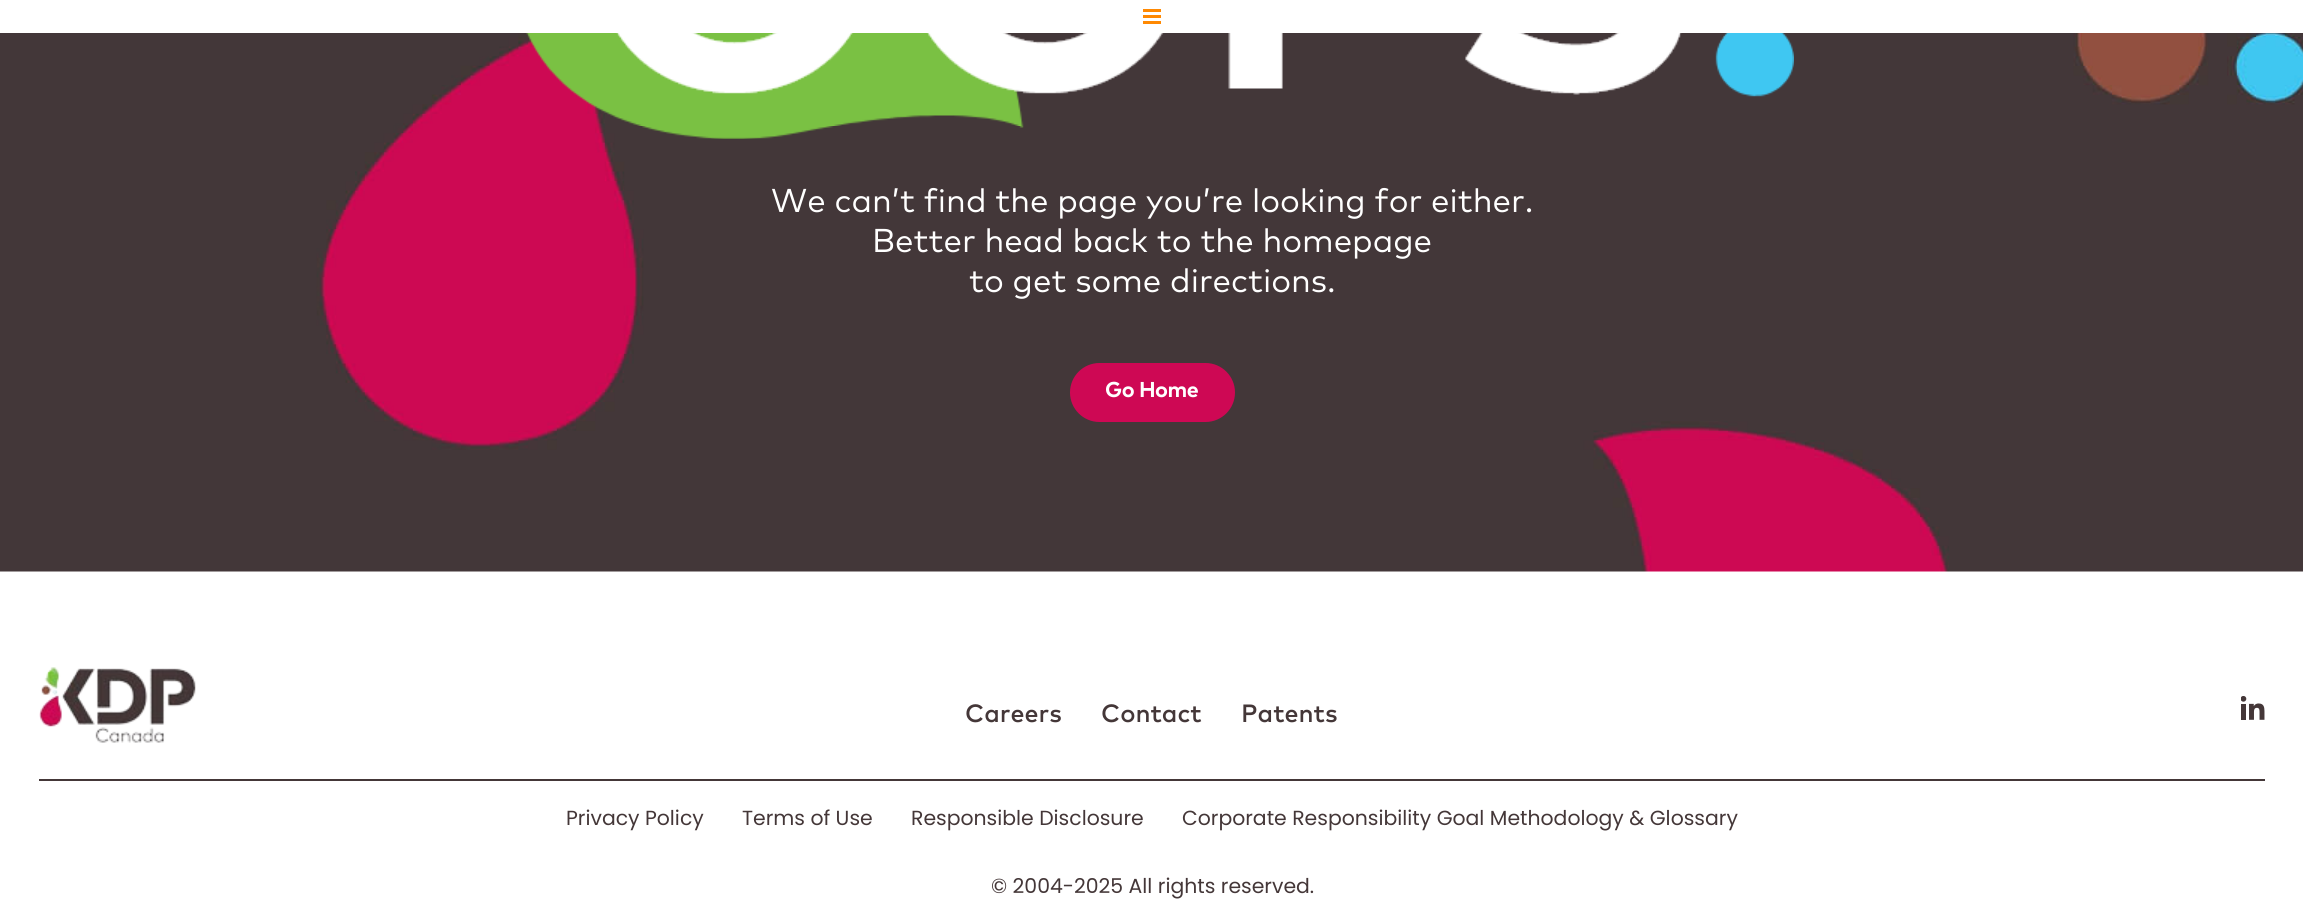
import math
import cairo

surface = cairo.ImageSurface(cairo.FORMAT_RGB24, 2303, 907)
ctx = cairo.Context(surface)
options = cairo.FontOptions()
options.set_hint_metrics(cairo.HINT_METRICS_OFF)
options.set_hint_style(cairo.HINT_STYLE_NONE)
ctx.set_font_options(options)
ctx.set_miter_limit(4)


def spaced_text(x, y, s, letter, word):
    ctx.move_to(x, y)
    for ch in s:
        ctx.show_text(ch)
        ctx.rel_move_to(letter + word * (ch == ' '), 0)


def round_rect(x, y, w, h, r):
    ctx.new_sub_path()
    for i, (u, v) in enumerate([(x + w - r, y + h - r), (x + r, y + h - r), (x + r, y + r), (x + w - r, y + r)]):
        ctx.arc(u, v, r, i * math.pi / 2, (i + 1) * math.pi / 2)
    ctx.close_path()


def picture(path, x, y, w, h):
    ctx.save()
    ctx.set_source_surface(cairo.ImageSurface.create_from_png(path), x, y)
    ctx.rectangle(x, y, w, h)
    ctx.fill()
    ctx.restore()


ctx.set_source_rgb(1, 1, 1)
ctx.paint()
picture("img1.png", 1143, 9, 18, 15)
picture("img2.png", 0, 33, 2303, 539)
picture("img3.png", 526, 33, 1268, 106)
ctx.select_font_face("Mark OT")
ctx.set_font_size(33)
ctx.set_source_rgb(1, 1, 1)
ctx.move_to(771, 212)
ctx.show_text("We can’t find the page you’re looking for either.")
ctx.move_to(872, 252)
ctx.show_text("Better head back to the homepage")
ctx.move_to(969, 292)
ctx.show_text("to get some directions.")
ctx.set_source_rgb(0.808, 0.035, 0.329)
round_rect(1071, 364, 163, 57, 28.5)
ctx.fill_preserve()
ctx.stroke()
ctx.select_font_face("Mark OT", cairo.FONT_SLANT_NORMAL, cairo.FONT_WEIGHT_BOLD)
ctx.set_font_size(21.5)
ctx.set_source_rgb(1, 1, 1)
spaced_text(1105, 397, "Go Home", -0.5, 0)
picture("img4.png", 39, 667, 157, 76)
ctx.select_font_face("Mark OT Medium")
ctx.set_font_size(25)
ctx.set_source_rgb(0.267, 0.216, 0.22)
ctx.move_to(965, 722)
ctx.show_text("Careers")
ctx.move_to(1101, 722)
ctx.show_text("Contact")
ctx.move_to(1241, 722)
ctx.show_text("Patents")
picture("img5.png", 2241, 696, 24, 24)
ctx.rectangle(39, 779, 2226, 2)
ctx.fill()
ctx.select_font_face("Poppins")
ctx.set_font_size(20.4)
ctx.move_to(566, 825)
ctx.show_text("Privacy Policy")
ctx.move_to(742, 825)
ctx.show_text("Terms of Use")
ctx.move_to(911, 825)
ctx.show_text("Responsible Disclosure")
ctx.move_to(1182, 825)
ctx.show_text("Corporate Responsibility Goal Methodology & Glossary")
ctx.move_to(991, 893)
ctx.show_text("© 2004-2025 All rights reserved.")
surface.write_to_png("page.png")
